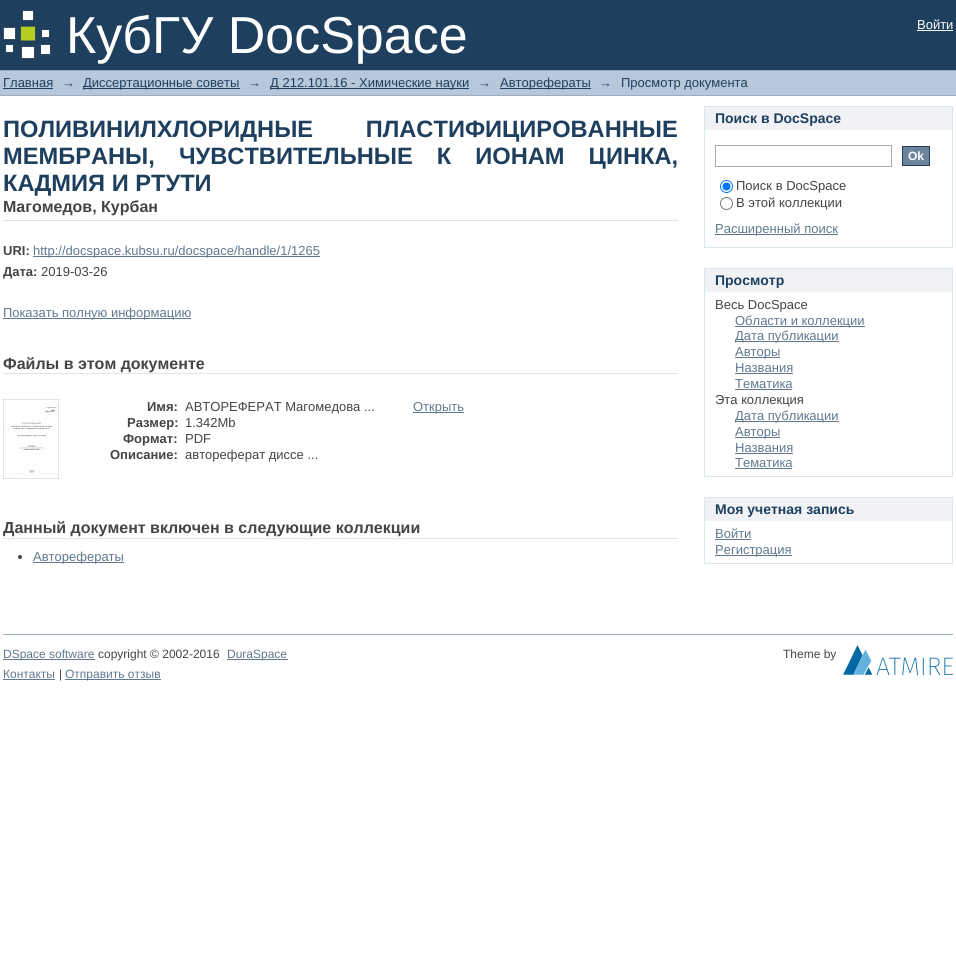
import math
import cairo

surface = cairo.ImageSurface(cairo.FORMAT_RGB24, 956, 963)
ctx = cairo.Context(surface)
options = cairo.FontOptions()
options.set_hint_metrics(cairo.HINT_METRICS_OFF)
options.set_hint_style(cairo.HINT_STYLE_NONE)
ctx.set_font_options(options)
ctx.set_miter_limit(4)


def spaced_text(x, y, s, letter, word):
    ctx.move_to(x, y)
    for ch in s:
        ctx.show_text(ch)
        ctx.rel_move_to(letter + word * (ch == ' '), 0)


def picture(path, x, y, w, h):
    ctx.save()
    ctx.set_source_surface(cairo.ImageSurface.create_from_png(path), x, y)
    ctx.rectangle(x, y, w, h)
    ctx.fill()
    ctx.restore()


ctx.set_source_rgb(1, 1, 1)
ctx.paint()
ctx.set_source_rgb(0.122, 0.247, 0.369)
ctx.rectangle(0, 0, 956, 70)
ctx.fill()
picture("img1.png", 3, 10, 48, 49)
ctx.select_font_face("Liberation Sans")
ctx.set_font_size(52)
ctx.set_source_rgb(1, 1, 1)
ctx.move_to(66, 53)
ctx.show_text("КубГУ DocSpace")
ctx.set_font_size(13)
ctx.move_to(917, 29)
ctx.show_text("Войти")
ctx.rectangle(917, 30, 36, 1)
ctx.fill()
ctx.set_source_rgb(0.714, 0.784, 0.851)
ctx.rectangle(0, 71, 956, 24)
ctx.fill()
ctx.set_source_rgb(0.612, 0.675, 0.729)
ctx.rectangle(0, 70, 956, 1)
ctx.fill()
ctx.rectangle(0, 95, 956, 1)
ctx.fill()
ctx.set_source_rgb(0.122, 0.247, 0.369)
ctx.move_to(3, 87)
ctx.show_text("Главная")
ctx.rectangle(3, 88, 50, 1)
ctx.fill()
ctx.move_to(62, 87)
ctx.show_text("→")
ctx.rectangle(83, 88, 157, 1)
ctx.fill()
ctx.move_to(83, 87)
ctx.show_text("Диссертационные советы")
ctx.move_to(248, 87)
ctx.show_text("→")
ctx.rectangle(270, 88, 199, 1)
ctx.fill()
ctx.move_to(270, 87)
ctx.show_text("Д 212.101.16 - Химические науки")
ctx.move_to(478, 87)
ctx.show_text("→")
ctx.rectangle(500, 88, 91, 1)
ctx.fill()
ctx.move_to(500, 87)
ctx.show_text("Авторефераты")
ctx.move_to(599, 87)
ctx.show_text("→")
ctx.move_to(621, 87)
ctx.show_text("Просмотр документа")
ctx.select_font_face("Liberation Sans", cairo.FONT_SLANT_NORMAL, cairo.FONT_WEIGHT_BOLD)
ctx.set_font_size(23.65)
spaced_text(3, 137, "ПОЛИВИНИЛХЛОРИДНЫЕ ПЛАСТИФИЦИРОВАННЫЕ", 0, 46)
spaced_text(3, 164, "МЕМБРАНЫ, ЧУВСТВИТЕЛЬНЫЕ К ИОНАМ ЦИНКА,", 0, 17.5)
ctx.move_to(3, 191)
ctx.show_text("КАДМИЯ И РТУТИ")
ctx.set_source_rgb(0.847, 0.91, 0.922)
ctx.rectangle(3, 220, 675, 1)
ctx.fill()
ctx.set_font_size(16)
ctx.set_source_rgb(0.267, 0.267, 0.267)
ctx.move_to(3, 212)
ctx.show_text("Магомедов, Курбан")
ctx.set_font_size(13)
ctx.move_to(3, 255)
ctx.show_text("URI:")
ctx.set_source_rgb(0.376, 0.471, 0.565)
ctx.rectangle(33, 256, 287, 1)
ctx.fill()
ctx.select_font_face("Liberation Sans")
ctx.move_to(33, 255)
ctx.show_text("http://docspace.kubsu.ru/docspace/handle/1/1265")
ctx.select_font_face("Liberation Sans", cairo.FONT_SLANT_NORMAL, cairo.FONT_WEIGHT_BOLD)
ctx.set_source_rgb(0.267, 0.267, 0.267)
ctx.move_to(3, 276)
ctx.show_text("Дата:")
ctx.select_font_face("Liberation Sans")
ctx.move_to(41, 276)
ctx.show_text("2019-03-26")
ctx.set_source_rgb(0.376, 0.471, 0.565)
ctx.rectangle(3, 318, 188, 1)
ctx.fill()
ctx.move_to(3, 317)
ctx.show_text("Показать полную информацию")
ctx.set_source_rgb(0.847, 0.91, 0.922)
ctx.rectangle(3, 373, 675, 1)
ctx.fill()
ctx.select_font_face("Liberation Sans", cairo.FONT_SLANT_NORMAL, cairo.FONT_WEIGHT_BOLD)
ctx.set_font_size(16)
ctx.set_source_rgb(0.267, 0.267, 0.267)
ctx.move_to(3, 369)
ctx.show_text("Файлы в этом документе")
picture("img2.png", 3, 399, 56, 80)
ctx.set_font_size(13)
ctx.move_to(147, 411)
ctx.show_text("Имя:")
ctx.select_font_face("Liberation Sans")
ctx.move_to(185, 411)
ctx.show_text("АВТОРЕФЕРАТ Магомедова ...")
ctx.select_font_face("Liberation Sans", cairo.FONT_SLANT_NORMAL, cairo.FONT_WEIGHT_BOLD)
ctx.move_to(127, 427)
ctx.show_text("Размер:")
ctx.select_font_face("Liberation Sans")
ctx.move_to(185, 427)
ctx.show_text("1.342Mb")
ctx.select_font_face("Liberation Sans", cairo.FONT_SLANT_NORMAL, cairo.FONT_WEIGHT_BOLD)
ctx.move_to(123, 443)
ctx.show_text("Формат:")
ctx.select_font_face("Liberation Sans")
ctx.move_to(185, 443)
ctx.show_text("PDF")
ctx.select_font_face("Liberation Sans", cairo.FONT_SLANT_NORMAL, cairo.FONT_WEIGHT_BOLD)
ctx.move_to(110, 459)
ctx.show_text("Описание:")
ctx.select_font_face("Liberation Sans")
ctx.move_to(185, 459)
ctx.show_text("автореферат диссе ...")
ctx.set_source_rgb(0.376, 0.471, 0.565)
ctx.rectangle(413, 412, 51, 1)
ctx.fill()
ctx.move_to(413, 411)
ctx.show_text("Открыть")
ctx.set_source_rgb(0.847, 0.91, 0.922)
ctx.rectangle(3, 538, 675, 1)
ctx.fill()
ctx.select_font_face("Liberation Sans", cairo.FONT_SLANT_NORMAL, cairo.FONT_WEIGHT_BOLD)
ctx.set_font_size(16)
ctx.set_source_rgb(0.267, 0.267, 0.267)
ctx.move_to(3, 533)
ctx.show_text("Данный документ включен в следующие коллекции")
ctx.new_path()
ctx.arc(20, 557, 2, 0, 2 * math.pi)
ctx.fill()
ctx.set_source_rgb(0.376, 0.471, 0.565)
ctx.rectangle(33, 562, 91, 1)
ctx.fill()
ctx.select_font_face("Liberation Sans")
ctx.set_font_size(13)
ctx.move_to(33, 561)
ctx.show_text("Авторефераты")
ctx.set_source_rgb(0.941, 0.949, 0.961)
ctx.rectangle(705, 107, 247, 23)
ctx.fill()
ctx.set_source_rgb(0.847, 0.91, 0.922)
ctx.rectangle(704, 106, 249, 1)
ctx.fill()
ctx.rectangle(952, 106, 1, 142)
ctx.fill()
ctx.rectangle(704, 106, 1, 24)
ctx.fill()
ctx.select_font_face("Liberation Sans", cairo.FONT_SLANT_NORMAL, cairo.FONT_WEIGHT_BOLD)
ctx.set_font_size(14)
ctx.set_source_rgb(0.122, 0.247, 0.369)
ctx.move_to(715, 123)
ctx.show_text("Поиск в DocSpace")
ctx.set_source_rgb(0.847, 0.91, 0.922)
ctx.rectangle(704, 247, 249, 1)
ctx.fill()
ctx.rectangle(704, 130, 1, 118)
ctx.fill()
ctx.rectangle(715.5, 145.5, 176, 21)
ctx.set_source_rgb(0.667, 0.667, 0.667)
ctx.set_line_width(1)
ctx.stroke()
ctx.set_source_rgb(0.427, 0.522, 0.612)
ctx.rectangle(902.5, 146.5, 27, 19)
ctx.fill_preserve()
ctx.set_source_rgb(0.122, 0.247, 0.369)
ctx.stroke()
ctx.set_font_size(12)
ctx.set_source_rgb(1, 1, 1)
ctx.move_to(908, 160)
ctx.show_text("Ok")
ctx.new_path()
ctx.arc(726.5, 186.5, 6, 0, 2 * math.pi)
ctx.set_source_rgb(0, 0.459, 1)
ctx.stroke()
ctx.arc(726.5, 186.5, 4, 0, 2 * math.pi)
ctx.fill()
ctx.select_font_face("Liberation Sans")
ctx.set_font_size(13)
ctx.set_source_rgb(0.267, 0.267, 0.267)
ctx.move_to(736, 190)
ctx.show_text("Поиск в DocSpace")
ctx.new_path()
ctx.arc(726.5, 203.5, 6, 0, 2 * math.pi)
ctx.set_source_rgb(0.463, 0.463, 0.463)
ctx.stroke()
ctx.set_source_rgb(0.267, 0.267, 0.267)
ctx.move_to(736, 207)
ctx.show_text("В этой коллекции")
ctx.set_source_rgb(0.376, 0.471, 0.565)
ctx.rectangle(715, 234, 123, 1)
ctx.fill()
ctx.move_to(715, 233)
ctx.show_text("Расширенный поиск")
ctx.set_source_rgb(0.941, 0.949, 0.961)
ctx.rectangle(705, 269, 247, 23)
ctx.fill()
ctx.set_source_rgb(0.847, 0.91, 0.922)
ctx.rectangle(704, 268, 249, 1)
ctx.fill()
ctx.rectangle(952, 268, 1, 209)
ctx.fill()
ctx.rectangle(704, 268, 1, 24)
ctx.fill()
ctx.select_font_face("Liberation Sans", cairo.FONT_SLANT_NORMAL, cairo.FONT_WEIGHT_BOLD)
ctx.set_font_size(14)
ctx.set_source_rgb(0.122, 0.247, 0.369)
ctx.move_to(715, 285)
ctx.show_text("Просмотр")
ctx.set_source_rgb(0.847, 0.91, 0.922)
ctx.rectangle(704, 476, 249, 1)
ctx.fill()
ctx.rectangle(704, 292, 1, 185)
ctx.fill()
ctx.select_font_face("Liberation Sans")
ctx.set_font_size(13)
ctx.set_source_rgb(0.267, 0.267, 0.267)
ctx.move_to(715, 309)
ctx.show_text("Весь DocSpace")
ctx.set_source_rgb(0.376, 0.471, 0.565)
ctx.rectangle(735, 326, 130, 1)
ctx.fill()
ctx.move_to(735, 325)
ctx.show_text("Области и коллекции")
ctx.rectangle(735, 341, 104, 1)
ctx.fill()
ctx.move_to(735, 340)
ctx.show_text("Дата публикации")
ctx.rectangle(735, 357, 45, 1)
ctx.fill()
ctx.move_to(735, 356)
ctx.show_text("Авторы")
ctx.move_to(735, 372)
ctx.show_text("Названия")
ctx.rectangle(735, 373, 58, 1)
ctx.fill()
ctx.move_to(735, 388)
ctx.show_text("Тематика")
ctx.rectangle(735, 389, 57, 1)
ctx.fill()
ctx.set_source_rgb(0.267, 0.267, 0.267)
ctx.move_to(715, 404)
ctx.show_text("Эта коллекция")
ctx.set_source_rgb(0.376, 0.471, 0.565)
ctx.rectangle(735, 421, 104, 1)
ctx.fill()
ctx.move_to(735, 420)
ctx.show_text("Дата публикации")
ctx.rectangle(735, 437, 45, 1)
ctx.fill()
ctx.move_to(735, 436)
ctx.show_text("Авторы")
ctx.move_to(735, 452)
ctx.show_text("Названия")
ctx.rectangle(735, 453, 58, 1)
ctx.fill()
ctx.move_to(735, 467)
ctx.show_text("Тематика")
ctx.rectangle(735, 468, 57, 1)
ctx.fill()
ctx.set_source_rgb(0.941, 0.949, 0.961)
ctx.rectangle(705, 498, 247, 23)
ctx.fill()
ctx.set_source_rgb(0.847, 0.91, 0.922)
ctx.rectangle(704, 497, 249, 1)
ctx.fill()
ctx.rectangle(952, 497, 1, 67)
ctx.fill()
ctx.rectangle(704, 497, 1, 24)
ctx.fill()
ctx.select_font_face("Liberation Sans", cairo.FONT_SLANT_NORMAL, cairo.FONT_WEIGHT_BOLD)
ctx.set_font_size(14)
ctx.set_source_rgb(0.122, 0.247, 0.369)
ctx.move_to(715, 514)
ctx.show_text("Моя учетная запись")
ctx.set_source_rgb(0.847, 0.91, 0.922)
ctx.rectangle(704, 563, 249, 1)
ctx.fill()
ctx.rectangle(704, 521, 1, 43)
ctx.fill()
ctx.select_font_face("Liberation Sans")
ctx.set_font_size(13)
ctx.set_source_rgb(0.376, 0.471, 0.565)
ctx.move_to(715, 538)
ctx.show_text("Войти")
ctx.rectangle(715, 539, 36, 1)
ctx.fill()
ctx.rectangle(715, 555, 77, 1)
ctx.fill()
ctx.move_to(715, 554)
ctx.show_text("Регистрация")
ctx.set_source_rgb(0.612, 0.675, 0.729)
ctx.rectangle(3, 634, 950, 1)
ctx.fill()
ctx.set_source_rgb(0.376, 0.471, 0.565)
ctx.rectangle(3, 659, 92, 1)
ctx.fill()
ctx.set_font_size(12)
ctx.move_to(3, 658)
ctx.show_text("DSpace software")
ctx.set_source_rgb(0.267, 0.267, 0.267)
ctx.move_to(98, 658)
ctx.show_text("copyright © 2002-2016")
ctx.set_source_rgb(0.376, 0.471, 0.565)
ctx.rectangle(227, 659, 61, 1)
ctx.fill()
ctx.move_to(227, 658)
ctx.show_text("DuraSpace")
ctx.set_source_rgb(0.267, 0.267, 0.267)
ctx.move_to(783, 658)
ctx.show_text("Theme by")
picture("img3.png", 843, 645, 110, 30)
ctx.set_source_rgb(0.376, 0.471, 0.565)
ctx.move_to(3, 678)
ctx.show_text("Контакты")
ctx.rectangle(3, 679, 52, 1)
ctx.fill()
ctx.set_source_rgb(0.267, 0.267, 0.267)
ctx.move_to(59, 678)
ctx.show_text("|")
ctx.set_source_rgb(0.376, 0.471, 0.565)
ctx.rectangle(65, 679, 96, 1)
ctx.fill()
ctx.move_to(65, 678)
ctx.show_text("Отправить отзыв")
surface.write_to_png("page.png")
